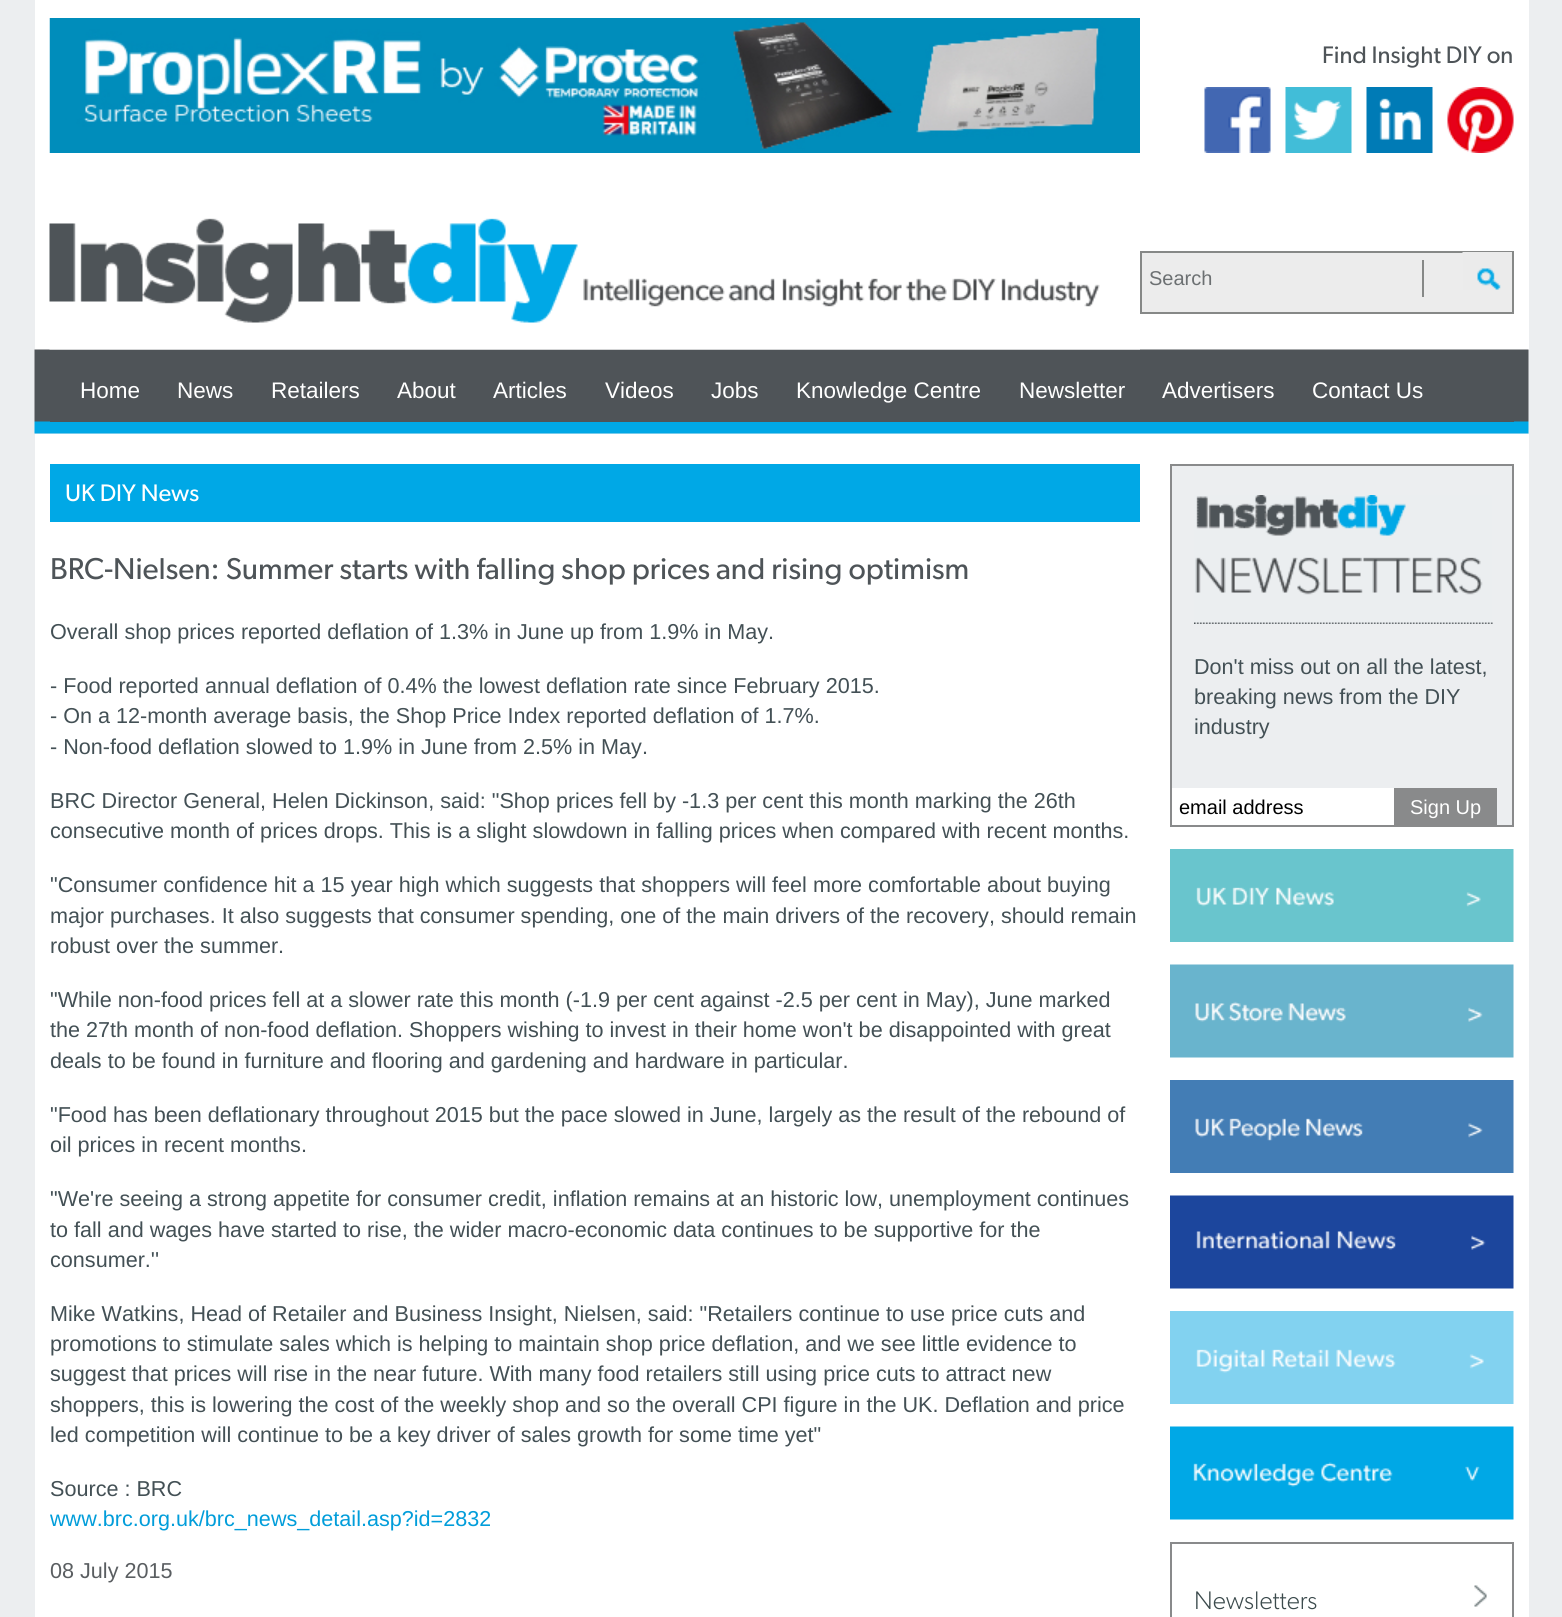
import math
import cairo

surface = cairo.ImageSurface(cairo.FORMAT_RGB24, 1562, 1617)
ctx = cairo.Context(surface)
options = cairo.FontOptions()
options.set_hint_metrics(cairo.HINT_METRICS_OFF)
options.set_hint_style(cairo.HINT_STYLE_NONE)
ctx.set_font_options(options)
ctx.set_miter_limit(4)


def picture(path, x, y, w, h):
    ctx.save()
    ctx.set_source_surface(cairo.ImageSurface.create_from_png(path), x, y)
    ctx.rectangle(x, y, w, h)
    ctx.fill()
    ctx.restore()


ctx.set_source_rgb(0.922, 0.933, 0.941)
ctx.paint()
ctx.set_source_rgb(1, 1, 1)
ctx.rectangle(35, 0, 1494, 350)
ctx.fill()
picture("img1.png", 49, 18, 1091, 135)
ctx.select_font_face("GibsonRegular")
ctx.set_font_size(24)
ctx.set_source_rgb(0.306, 0.329, 0.345)
ctx.move_to(1322, 63)
ctx.show_text("Find Insight DIY on")
picture("img2.png", 1204, 87, 67, 66)
picture("img3.png", 1285, 87, 67, 66)
picture("img4.png", 1366, 87, 67, 66)
picture("img5.png", 1447, 87, 67, 66)
picture("img8.png", 34, 349, 1495, 85)
picture("img6.png", 49, 218, 1091, 132)
ctx.set_source_rgb(0.922, 0.922, 0.922)
ctx.rectangle(1141, 252, 372, 61)
ctx.fill_preserve()
ctx.set_source_rgb(0.525, 0.533, 0.529)
ctx.stroke()
ctx.rectangle(1422, 260, 2, 37)
ctx.fill()
ctx.select_font_face("Liberation Sans")
ctx.set_font_size(20)
ctx.set_source_rgb(0.424, 0.439, 0.447)
ctx.move_to(1149, 285)
ctx.show_text("Search")
picture("img7.png", 1462, 252, 50, 38)
ctx.set_source_rgb(0.306, 0.329, 0.345)
ctx.rectangle(50, 421, 1464, 1)
ctx.fill()
ctx.set_font_size(22.5)
ctx.set_source_rgb(1, 1, 1)
ctx.move_to(80, 398)
ctx.show_text("Home")
ctx.move_to(177, 398)
ctx.show_text("News")
ctx.move_to(271, 398)
ctx.show_text("Retailers")
ctx.move_to(397, 398)
ctx.show_text("About")
ctx.move_to(493, 398)
ctx.show_text("Articles")
ctx.move_to(605, 398)
ctx.show_text("Videos")
ctx.move_to(711, 398)
ctx.show_text("Jobs")
ctx.move_to(796, 398)
ctx.show_text("Knowledge Centre")
ctx.move_to(1019, 398)
ctx.show_text("Newsletter")
ctx.move_to(1162, 398)
ctx.show_text("Advertisers")
ctx.move_to(1312, 398)
ctx.show_text("Contact Us")
ctx.rectangle(35, 434, 1494, 1183)
ctx.fill()
ctx.set_source_rgb(0, 0.659, 0.902)
ctx.rectangle(50, 464, 1090, 58)
ctx.fill()
ctx.select_font_face("GibsonRegular")
ctx.set_font_size(24)
ctx.set_source_rgb(1, 1, 1)
ctx.move_to(65, 501)
ctx.show_text("UK DIY News")
ctx.set_font_size(30.25)
ctx.set_source_rgb(0.306, 0.329, 0.345)
ctx.move_to(50, 579)
ctx.show_text("BRC-Nielsen: Summer starts with falling shop prices and rising optimism")
ctx.select_font_face("Liberation Sans")
ctx.set_font_size(21.6)
ctx.set_source_rgb(0.263, 0.314, 0.333)
ctx.move_to(50, 639)
ctx.show_text("Overall shop prices reported deflation of 1.3% in June up from 1.9% in May.")
ctx.move_to(50, 693)
ctx.show_text("- Food reported annual deflation of 0.4% the lowest deflation rate since February 2015.")
ctx.move_to(50, 723)
ctx.show_text("- On a 12-month average basis, the Shop Price Index reported deflation of 1.7%.")
ctx.move_to(50, 754)
ctx.show_text("- Non-food deflation slowed to 1.9% in June from 2.5% in May.")
ctx.move_to(50, 808)
ctx.show_text("BRC Director General, Helen Dickinson, said: \"Shop prices fell by -1.3 per cent this month marking the 26th")
ctx.move_to(50, 838)
ctx.show_text("consecutive month of prices drops. This is a slight slowdown in falling prices when compared with recent months.")
ctx.move_to(50, 892)
ctx.show_text("\"Consumer confidence hit a 15 year high which suggests that shoppers will feel more comfortable about buying")
ctx.move_to(50, 923)
ctx.show_text("major purchases. It also suggests that consumer spending, one of the main drivers of the recovery, should remain")
ctx.move_to(50, 953)
ctx.show_text("robust over the summer.")
ctx.move_to(50, 1007)
ctx.show_text("\"While non-food prices fell at a slower rate this month (-1.9 per cent against -2.5 per cent in May), June marked")
ctx.move_to(50, 1037)
ctx.show_text("the 27th month of non-food deflation. Shoppers wishing to invest in their home won't be disappointed with great")
ctx.move_to(50, 1068)
ctx.show_text("deals to be found in furniture and flooring and gardening and hardware in particular.")
ctx.move_to(50, 1122)
ctx.show_text("\"Food has been deflationary throughout 2015 but the pace slowed in June, largely as the result of the rebound of")
ctx.move_to(50, 1152)
ctx.show_text("oil prices in recent months.")
ctx.move_to(50, 1206)
ctx.show_text("\"We're seeing a strong appetite for consumer credit, inflation remains at an historic low, unemployment continues")
ctx.move_to(50, 1237)
ctx.show_text("to fall and wages have started to rise, the wider macro-economic data continues to be supportive for the")
ctx.move_to(50, 1267)
ctx.show_text("consumer.''")
ctx.move_to(50, 1321)
ctx.show_text("Mike Watkins, Head of Retailer and Business Insight, Nielsen, said: \"Retailers continue to use price cuts and")
ctx.move_to(50, 1351)
ctx.show_text("promotions to stimulate sales which is helping to maintain shop price deflation, and we see little evidence to")
ctx.move_to(50, 1381)
ctx.show_text("suggest that prices will rise in the near future. With many food retailers still using price cuts to attract new")
ctx.move_to(50, 1412)
ctx.show_text("shoppers, this is lowering the cost of the weekly shop and so the overall CPI figure in the UK. Deflation and price")
ctx.move_to(50, 1442)
ctx.show_text("led competition will continue to be a key driver of sales growth for some time yet\"")
ctx.move_to(50, 1496)
ctx.show_text("Source : BRC")
ctx.set_source_rgb(0.004, 0.616, 0.855)
ctx.move_to(50, 1526)
ctx.show_text("www.brc.org.uk/brc_news_detail.asp?id=2832")
ctx.set_source_rgb(0.353, 0.369, 0.38)
ctx.move_to(50, 1578)
ctx.show_text("08 July 2015")
ctx.set_source_rgb(0.922, 0.933, 0.941)
ctx.rectangle(1171, 465, 342, 361)
ctx.fill_preserve()
ctx.set_source_rgb(0.537, 0.541, 0.545)
ctx.stroke()
picture("img9.png", 1194, 495, 299, 129)
ctx.set_source_rgb(0.263, 0.314, 0.333)
ctx.move_to(1194, 674)
ctx.show_text("Don't miss out on all the latest,")
ctx.move_to(1194, 704)
ctx.show_text("breaking news from the DIY")
ctx.move_to(1194, 734)
ctx.show_text("industry")
ctx.set_source_rgb(1, 1, 1)
ctx.rectangle(1172, 788, 222, 37)
ctx.fill()
ctx.set_font_size(20)
ctx.set_source_rgb(0, 0, 0)
ctx.move_to(1179, 814)
ctx.show_text("email address")
ctx.set_source_rgb(0.537, 0.541, 0.545)
ctx.rectangle(1394, 788, 103, 37)
ctx.fill()
ctx.set_source_rgb(1, 1, 1)
ctx.move_to(1410, 814)
ctx.show_text("Sign Up")
picture("img10.png", 1170, 849, 344, 93)
picture("img11.png", 1170, 964, 344, 94)
picture("img12.png", 1170, 1080, 344, 93)
picture("img13.png", 1170, 1195, 344, 94)
picture("img14.png", 1170, 1311, 344, 93)
picture("img15.png", 1170, 1426, 344, 94)
ctx.rectangle(1171, 1543, 342, 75)
ctx.set_source_rgb(0.537, 0.541, 0.545)
ctx.stroke()
picture("img16.png", 1474, 1585, 13, 22)
ctx.select_font_face("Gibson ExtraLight")
ctx.set_font_size(25.5)
ctx.set_source_rgb(0.231, 0.29, 0.298)
ctx.move_to(1194, 1609)
ctx.show_text("Newsletters")
surface.write_to_png("page.png")
